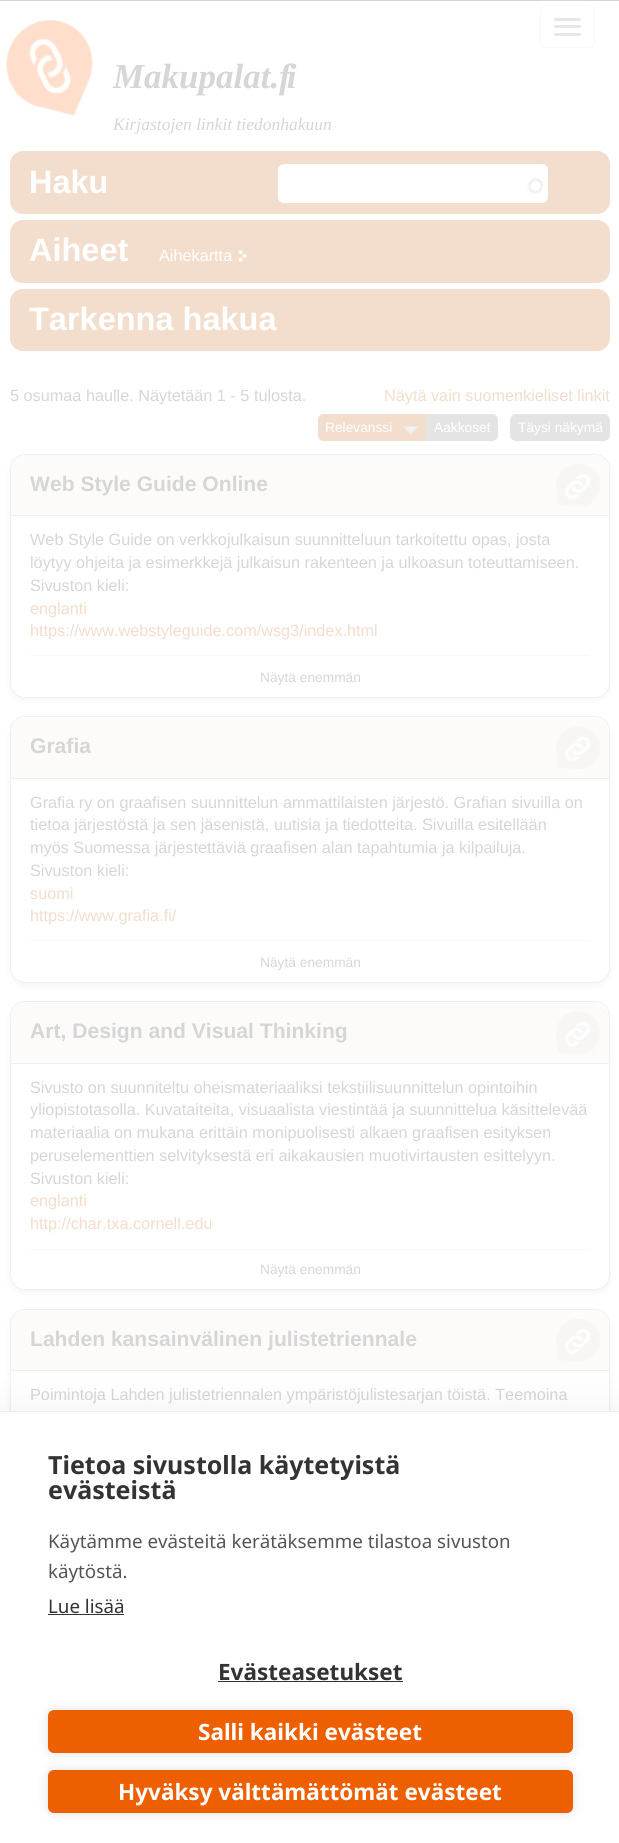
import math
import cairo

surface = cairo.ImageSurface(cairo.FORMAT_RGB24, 619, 1843)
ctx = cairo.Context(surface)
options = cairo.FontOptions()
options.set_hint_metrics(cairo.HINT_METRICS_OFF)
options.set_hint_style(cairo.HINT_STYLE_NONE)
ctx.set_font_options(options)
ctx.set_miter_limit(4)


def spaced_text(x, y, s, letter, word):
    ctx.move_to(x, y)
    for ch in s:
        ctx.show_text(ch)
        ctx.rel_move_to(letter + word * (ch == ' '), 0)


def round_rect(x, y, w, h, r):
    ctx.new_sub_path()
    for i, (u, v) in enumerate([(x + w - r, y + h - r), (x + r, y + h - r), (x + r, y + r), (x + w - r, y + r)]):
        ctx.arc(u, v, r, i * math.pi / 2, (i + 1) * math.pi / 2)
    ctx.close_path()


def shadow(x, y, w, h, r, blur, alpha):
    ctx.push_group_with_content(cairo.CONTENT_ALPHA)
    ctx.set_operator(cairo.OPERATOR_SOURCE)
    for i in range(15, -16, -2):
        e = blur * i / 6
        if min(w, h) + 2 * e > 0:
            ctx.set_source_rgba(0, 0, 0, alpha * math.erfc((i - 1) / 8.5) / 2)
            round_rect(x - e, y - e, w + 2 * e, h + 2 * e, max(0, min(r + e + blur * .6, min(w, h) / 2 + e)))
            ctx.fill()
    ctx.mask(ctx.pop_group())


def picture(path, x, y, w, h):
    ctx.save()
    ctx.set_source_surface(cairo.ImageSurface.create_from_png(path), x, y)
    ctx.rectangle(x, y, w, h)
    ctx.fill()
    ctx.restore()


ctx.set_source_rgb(1, 1, 1)
ctx.paint()
ctx.set_source_rgb(0.827, 0.831, 0.859)
ctx.rectangle(0, 0, 619, 1)
ctx.fill()
round_rect(540.5, 5.5, 54, 42, 4.5)
ctx.set_source_rgb(0.973, 0.973, 0.973)
ctx.set_line_width(1)
ctx.stroke()
ctx.set_source_rgb(0.906, 0.906, 0.906)
round_rect(554, 18, 27, 3, 1.5)
ctx.fill()
round_rect(554, 25, 27, 3, 1.5)
ctx.fill()
round_rect(554, 33, 27, 3, 1.5)
ctx.fill()
picture("img1.png", 6, 20, 87, 96)
ctx.select_font_face("Liberation Serif", cairo.FONT_SLANT_ITALIC, cairo.FONT_WEIGHT_BOLD)
ctx.set_font_size(35)
ctx.set_source_rgb(0.839, 0.839, 0.839)
ctx.move_to(113, 88)
ctx.show_text("Makupalat.")
spaced_text(279, 88, "fi", -4, 0)
ctx.select_font_face("Liberation Serif", cairo.FONT_SLANT_ITALIC)
ctx.set_font_size(17.5)
ctx.move_to(113, 130)
ctx.show_text("Kirjastojen linkit tiedonhakuun")
ctx.set_source_rgb(0.953, 0.867, 0.8)
round_rect(10, 151, 600, 63, 13)
ctx.fill()
ctx.select_font_face("Liberation Sans", cairo.FONT_SLANT_NORMAL, cairo.FONT_WEIGHT_BOLD)
ctx.set_font_size(32.5)
ctx.set_source_rgb(1, 1, 1)
ctx.move_to(29, 193)
ctx.show_text("Haku")
round_rect(278, 164, 270, 39, 6)
ctx.fill()
picture("img2.png", 527, 177, 17, 17)
ctx.set_source_rgb(0.953, 0.867, 0.8)
round_rect(10, 220, 600, 63, 13)
ctx.fill()
ctx.set_source_rgb(1, 1, 1)
ctx.move_to(29, 261)
ctx.show_text("Aiheet")
ctx.select_font_face("Liberation Sans")
ctx.set_font_size(16.25)
ctx.move_to(159, 261)
ctx.show_text("Aihekartta")
picture("img3.png", 238, 250, 9, 12)
ctx.set_source_rgb(0.953, 0.867, 0.8)
round_rect(10, 289, 600, 62, 13)
ctx.fill()
ctx.select_font_face("Liberation Sans", cairo.FONT_SLANT_NORMAL, cairo.FONT_WEIGHT_BOLD)
ctx.set_font_size(32.5)
ctx.set_source_rgb(1, 1, 1)
ctx.move_to(29, 330)
ctx.show_text("Tarkenna hakua")
ctx.select_font_face("Liberation Sans")
ctx.set_font_size(16.25)
ctx.set_source_rgb(0.839, 0.839, 0.839)
ctx.move_to(10, 401)
ctx.show_text("5 osumaa haulle. Näytetään 1 - 5 tulosta.")
ctx.set_source_rgb(0.953, 0.867, 0.8)
ctx.move_to(384, 401)
ctx.show_text("Näytä vain suomenkieliset linkit")
ctx.new_path()
ctx.move_to(324, 414)
ctx.line_to(426, 414)
ctx.line_to(426, 441)
ctx.line_to(324, 441)
ctx.curve_to(320.5, 441, 318, 438.5, 318, 435)
ctx.line_to(318, 420)
ctx.curve_to(318, 416.5, 320.5, 414, 324, 414)
ctx.close_path()
ctx.fill()
ctx.set_font_size(13.75)
ctx.set_source_rgb(1, 1, 1)
ctx.move_to(325, 432)
ctx.show_text("Relevanssi")
picture("img4.png", 403, 426, 15, 9)
ctx.set_source_rgb(0.894, 0.894, 0.894)
ctx.new_path()
ctx.move_to(426, 414)
ctx.line_to(492, 414)
ctx.curve_to(495.5, 414, 498, 416.5, 498, 420)
ctx.line_to(498, 435)
ctx.curve_to(498, 438.5, 495.5, 441, 492, 441)
ctx.line_to(426, 441)
ctx.close_path()
ctx.fill()
ctx.set_source_rgb(1, 1, 1)
ctx.move_to(434, 432)
ctx.show_text("Aakkoset")
ctx.set_source_rgb(0.894, 0.894, 0.894)
round_rect(510, 414, 100, 27, 6)
ctx.fill()
ctx.set_source_rgb(1, 1, 1)
ctx.move_to(518, 432)
ctx.show_text("Täysi näkymä")
ctx.set_source_rgb(0.961, 0.961, 0.961)
shadow(10, 458, 600, 243, 15, 3, 1)
ctx.set_source_rgb(1, 1, 1)
round_rect(10.5, 454.5, 599, 243, 14.5)
ctx.fill_preserve()
ctx.set_source_rgb(0.949, 0.941, 0.933)
ctx.stroke()
ctx.set_source_rgb(0.988, 0.984, 0.98)
ctx.new_path()
ctx.move_to(26, 455)
ctx.line_to(594, 455)
ctx.curve_to(602.5, 455, 609, 461.5, 609, 470)
ctx.line_to(609, 516)
ctx.line_to(11, 516)
ctx.line_to(11, 470)
ctx.curve_to(11, 461.5, 17.5, 455, 26, 455)
ctx.close_path()
ctx.fill()
picture("img5.png", 556, 464, 44, 43)
ctx.set_source_rgb(0.949, 0.941, 0.933)
ctx.rectangle(11, 515, 598, 1)
ctx.fill()
ctx.select_font_face("Liberation Sans", cairo.FONT_SLANT_NORMAL, cairo.FONT_WEIGHT_BOLD)
ctx.set_font_size(21.1)
ctx.set_source_rgb(0.839, 0.839, 0.839)
ctx.move_to(30, 491)
ctx.show_text("Web Style Guide Online")
ctx.select_font_face("Liberation Sans")
ctx.set_font_size(16.25)
ctx.move_to(30, 545)
ctx.show_text("Web Style Guide on verkkojulkaisun suunnitteluun tarkoitettu opas, josta")
ctx.move_to(30, 568)
ctx.show_text("löytyy ohjeita ja esimerkkejä julkaisun rakenteen ja ulkoasun toteuttamiseen.")
ctx.move_to(30, 591)
ctx.show_text("Sivuston kieli:")
ctx.set_source_rgb(0.953, 0.867, 0.8)
ctx.move_to(30, 614)
ctx.show_text("englanti")
ctx.move_to(30, 636)
ctx.show_text("https://www.webstyleguide.com/wsg3/index.html")
ctx.set_source_rgb(0.976, 0.973, 0.969)
ctx.rectangle(30, 655, 560, 1)
ctx.fill()
ctx.set_font_size(13.75)
ctx.set_source_rgb(0.839, 0.839, 0.839)
ctx.move_to(260, 682)
ctx.show_text("Näytä enemmän")
ctx.set_source_rgb(0.961, 0.961, 0.961)
shadow(10, 720, 600, 266, 15, 3, 1)
ctx.set_source_rgb(1, 1, 1)
round_rect(10.5, 716.5, 599, 266, 14.5)
ctx.fill_preserve()
ctx.set_source_rgb(0.949, 0.941, 0.933)
ctx.stroke()
ctx.set_source_rgb(0.988, 0.984, 0.98)
ctx.new_path()
ctx.move_to(26, 718)
ctx.line_to(594, 718)
ctx.curve_to(602.5, 718, 609, 724.5, 609, 733)
ctx.line_to(609, 779)
ctx.line_to(11, 779)
ctx.line_to(11, 733)
ctx.curve_to(11, 724.5, 17.5, 718, 26, 718)
ctx.close_path()
ctx.fill()
picture("img6.png", 556, 726, 44, 43)
ctx.set_source_rgb(0.949, 0.941, 0.933)
ctx.rectangle(11, 778, 598, 1)
ctx.fill()
ctx.select_font_face("Liberation Sans", cairo.FONT_SLANT_NORMAL, cairo.FONT_WEIGHT_BOLD)
ctx.set_font_size(21.1)
ctx.set_source_rgb(0.839, 0.839, 0.839)
ctx.move_to(30, 753)
ctx.show_text("Grafia")
ctx.select_font_face("Liberation Sans")
ctx.set_font_size(16.25)
ctx.move_to(30, 808)
ctx.show_text("Grafia ry on graafisen suunnittelun ammattilaisten järjestö. Grafian sivuilla on")
ctx.move_to(30, 830)
ctx.show_text("tietoa järjestöstä ja sen jäsenistä, uutisia ja tiedotteita. Sivuilla esitellään")
ctx.move_to(30, 853)
ctx.show_text("myös Suomessa järjestettäviä graafisen alan tapahtumia ja kilpailuja.")
ctx.move_to(30, 876)
ctx.show_text("Sivuston kieli:")
ctx.set_source_rgb(0.953, 0.867, 0.8)
ctx.move_to(30, 899)
ctx.show_text("suomi")
ctx.move_to(30, 921)
ctx.show_text("https://www.grafia.fi/")
ctx.set_source_rgb(0.976, 0.973, 0.969)
ctx.rectangle(30, 940, 560, 1)
ctx.fill()
ctx.set_font_size(13.75)
ctx.set_source_rgb(0.839, 0.839, 0.839)
ctx.move_to(260, 967)
ctx.show_text("Näytä enemmän")
ctx.set_source_rgb(0.961, 0.961, 0.961)
shadow(10, 1005, 600, 289, 15, 3, 1)
ctx.set_source_rgb(1, 1, 1)
round_rect(10.5, 1001.5, 599, 288, 14.5)
ctx.fill_preserve()
ctx.set_source_rgb(0.949, 0.941, 0.933)
ctx.stroke()
ctx.set_source_rgb(0.988, 0.984, 0.98)
ctx.new_path()
ctx.move_to(26, 1003)
ctx.line_to(594, 1003)
ctx.curve_to(602.5, 1003, 609, 1009.5, 609, 1018)
ctx.line_to(609, 1064)
ctx.line_to(11, 1064)
ctx.line_to(11, 1018)
ctx.curve_to(11, 1009.5, 17.5, 1003, 26, 1003)
ctx.close_path()
ctx.fill()
picture("img7.png", 556, 1011, 44, 43)
ctx.set_source_rgb(0.949, 0.941, 0.933)
ctx.rectangle(11, 1063, 598, 1)
ctx.fill()
ctx.select_font_face("Liberation Sans", cairo.FONT_SLANT_NORMAL, cairo.FONT_WEIGHT_BOLD)
ctx.set_font_size(21.1)
ctx.set_source_rgb(0.839, 0.839, 0.839)
ctx.move_to(30, 1038)
ctx.show_text("Art, Design and Visual Thinking")
ctx.select_font_face("Liberation Sans")
ctx.set_font_size(16.25)
ctx.move_to(30, 1093)
ctx.show_text("Sivusto on suunniteltu oheismateriaaliksi tekstiilisuunnittelun opintoihin")
ctx.move_to(30, 1115)
ctx.show_text("yliopistotasolla. Kuvataiteita, visuaalista viestintää ja suunnittelua käsittelevää")
ctx.move_to(30, 1138)
ctx.show_text("materiaalia on mukana erittäin monipuolisesti alkaen graafisen esityksen")
ctx.move_to(30, 1161)
ctx.show_text("peruselementtien selvityksestä eri aikakausien muotivirtausten esittelyyn.")
ctx.move_to(30, 1184)
ctx.show_text("Sivuston kieli:")
ctx.set_source_rgb(0.953, 0.867, 0.8)
ctx.move_to(30, 1206)
ctx.show_text("englanti")
ctx.move_to(30, 1229)
ctx.show_text("http://char.txa.cornell.edu")
ctx.set_source_rgb(0.976, 0.973, 0.969)
ctx.rectangle(30, 1249, 560, 1)
ctx.fill()
ctx.set_font_size(13.75)
ctx.set_source_rgb(0.839, 0.839, 0.839)
ctx.move_to(260, 1274)
ctx.show_text("Näytä enemmän")
ctx.set_source_rgb(0.961, 0.961, 0.961)
shadow(10, 1313, 600, 243, 15, 3, 1)
ctx.set_source_rgb(1, 1, 1)
round_rect(10.5, 1309.5, 599, 243, 14.5)
ctx.fill_preserve()
ctx.set_source_rgb(0.949, 0.941, 0.933)
ctx.stroke()
ctx.set_source_rgb(0.988, 0.984, 0.98)
ctx.new_path()
ctx.move_to(26, 1310)
ctx.line_to(594, 1310)
ctx.curve_to(602.5, 1310, 609, 1316.5, 609, 1325)
ctx.line_to(609, 1371)
ctx.line_to(11, 1371)
ctx.line_to(11, 1325)
ctx.curve_to(11, 1316.5, 17.5, 1310, 26, 1310)
ctx.close_path()
ctx.fill()
picture("img5.png", 556, 1319, 44, 43)
ctx.set_source_rgb(0.949, 0.941, 0.933)
ctx.rectangle(11, 1370, 598, 1)
ctx.fill()
ctx.select_font_face("Liberation Sans", cairo.FONT_SLANT_NORMAL, cairo.FONT_WEIGHT_BOLD)
ctx.set_font_size(21.1)
ctx.set_source_rgb(0.839, 0.839, 0.839)
ctx.move_to(30, 1346)
ctx.show_text("Lahden kansainvälinen julistetriennale")
ctx.select_font_face("Liberation Sans")
ctx.set_font_size(16.25)
ctx.move_to(30, 1400)
ctx.show_text("Poimintoja Lahden julistetriennalen ympäristöjulistesarjan töistä. Teemoina")
ctx.set_source_rgb(0, 0, 0)
shadow(0, 1424, 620, 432, 0, 25, 0.1)
ctx.set_source_rgb(1, 1, 1)
ctx.rectangle(0, 1412, 619, 431)
ctx.fill()
ctx.set_source_rgb(0.933, 0.933, 0.933)
ctx.rectangle(0, 1411, 619, 1)
ctx.fill()
ctx.select_font_face("Noto Sans", cairo.FONT_SLANT_NORMAL, cairo.FONT_WEIGHT_BOLD)
ctx.set_font_size(25)
ctx.set_source_rgb(0.2, 0.2, 0.2)
ctx.move_to(48, 1474)
ctx.show_text("Tietoa sivustolla käytetyistä")
ctx.move_to(48, 1499)
ctx.show_text("evästeistä")
ctx.select_font_face("Noto Sans")
ctx.set_font_size(18.75)
ctx.set_source_rgb(0.333, 0.333, 0.333)
ctx.move_to(48, 1548)
ctx.show_text("Käytämme evästeitä kerätäksemme tilastoa sivuston")
ctx.move_to(48, 1578)
ctx.show_text("käytöstä.")
ctx.set_source_rgb(0.2, 0.2, 0.2)
ctx.move_to(48, 1613)
ctx.show_text("Lue lisää")
ctx.rectangle(48, 1614, 76, 1)
ctx.fill()
ctx.select_font_face("Noto Sans", cairo.FONT_SLANT_NORMAL, cairo.FONT_WEIGHT_BOLD)
ctx.set_font_size(22.5)
ctx.move_to(218, 1680)
ctx.show_text("Evästeasetukset")
ctx.rectangle(218, 1681, 185, 1)
ctx.fill()
ctx.set_source_rgb(0, 0, 0)
shadow(48, 1710, 525, 43, 6, 6, 0.12)
ctx.set_source_rgb(0.929, 0.373, 0)
round_rect(48, 1710, 525, 43, 6)
ctx.fill()
ctx.set_source_rgb(1, 1, 1)
ctx.move_to(198, 1740)
ctx.show_text("Salli kaikki evästeet")
ctx.set_source_rgb(0, 0, 0)
shadow(48, 1770, 525, 43, 6, 6, 0.12)
ctx.set_source_rgb(0.929, 0.373, 0)
round_rect(48, 1770, 525, 43, 6)
ctx.fill()
ctx.set_source_rgb(1, 1, 1)
ctx.move_to(118, 1800)
ctx.show_text("Hyväksy välttämättömät evästeet")
surface.write_to_png("page.png")
